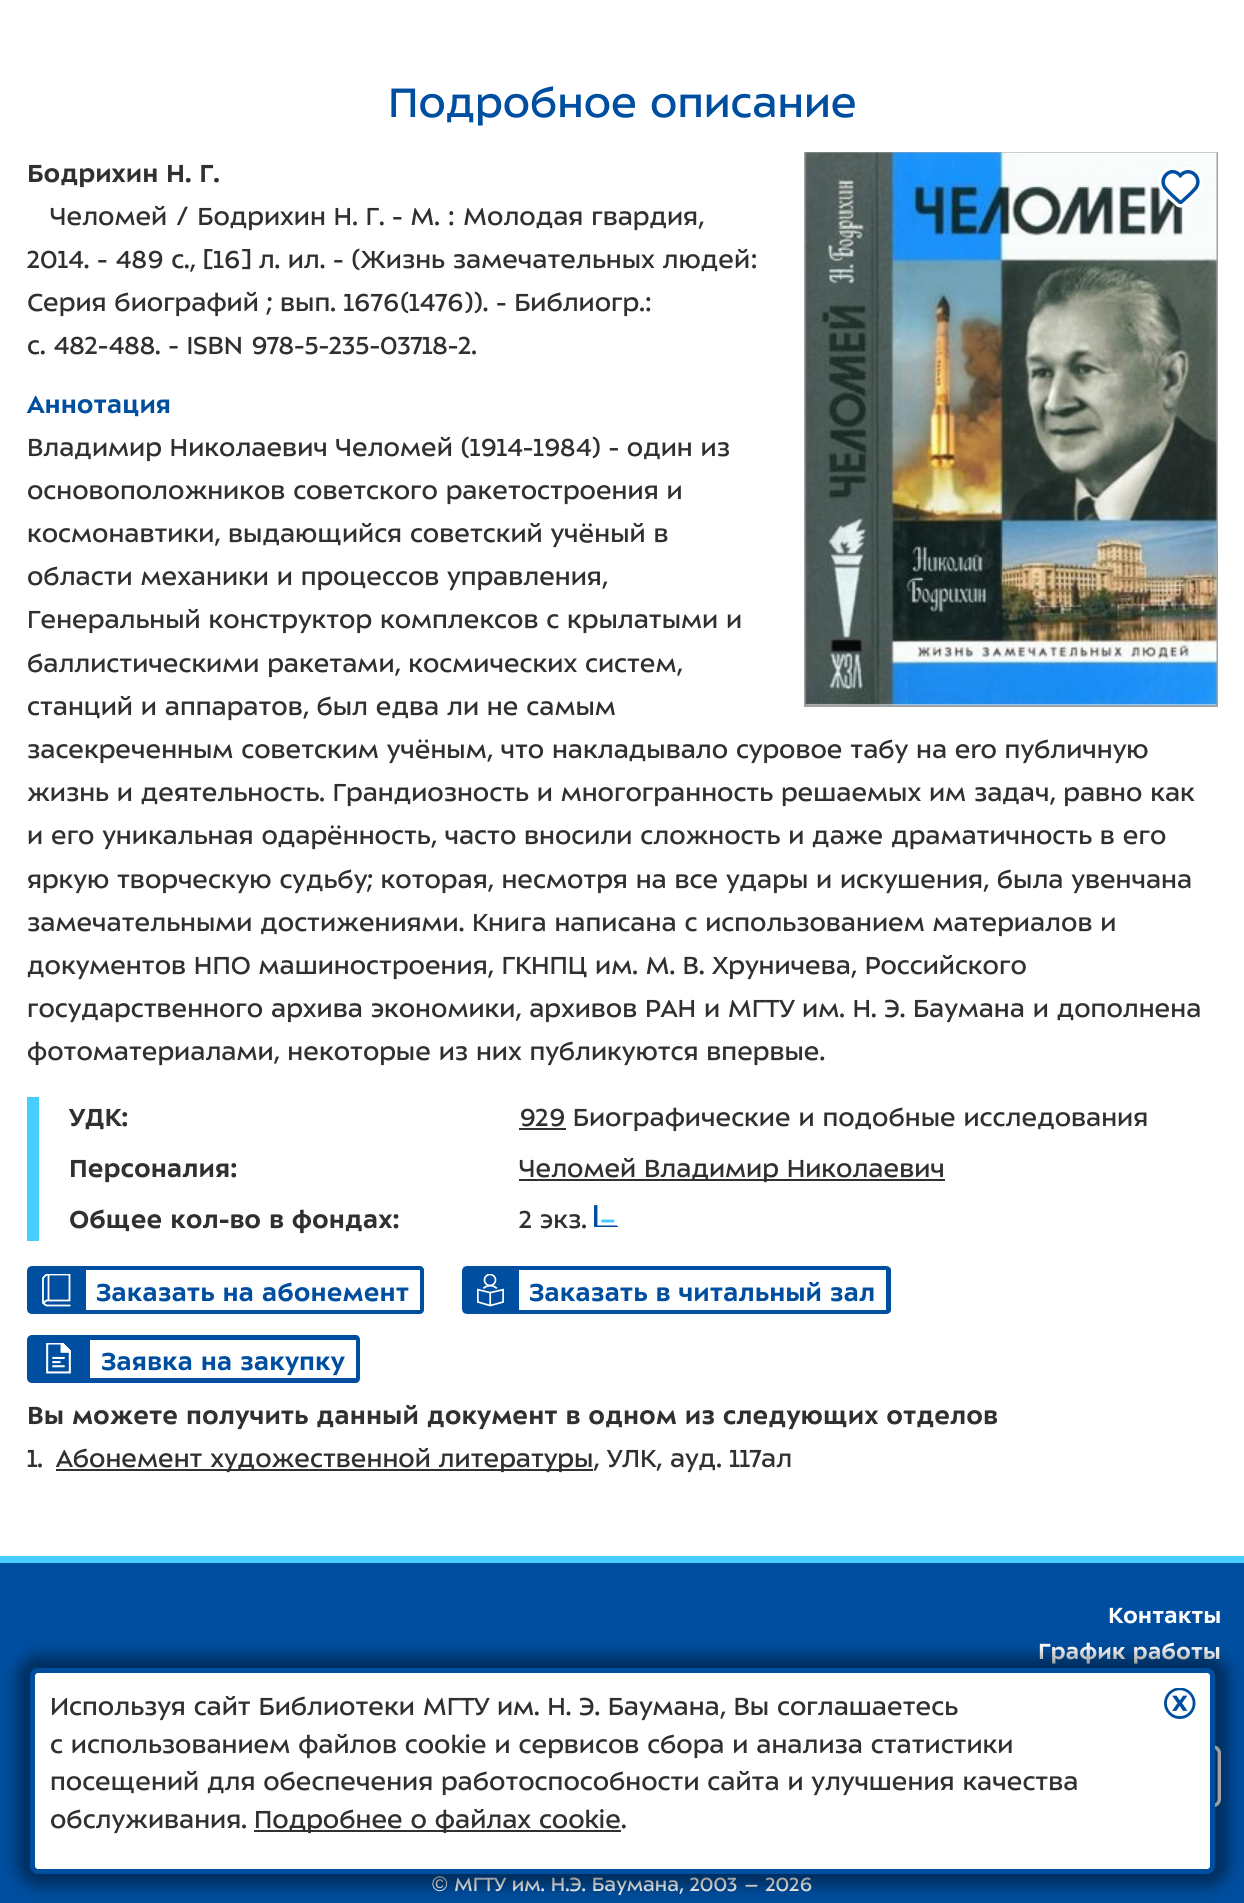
import math
import cairo

surface = cairo.ImageSurface(cairo.FORMAT_RGB24, 1244, 1903)
ctx = cairo.Context(surface)
options = cairo.FontOptions()
options.set_hint_metrics(cairo.HINT_METRICS_OFF)
options.set_hint_style(cairo.HINT_STYLE_NONE)
ctx.set_font_options(options)
ctx.set_miter_limit(4)


def round_rect(x, y, w, h, r):
    ctx.new_sub_path()
    for i, (u, v) in enumerate([(x + w - r, y + h - r), (x + r, y + h - r), (x + r, y + r), (x + w - r, y + r)]):
        ctx.arc(u, v, r, i * math.pi / 2, (i + 1) * math.pi / 2)
    ctx.close_path()


def shadow(x, y, w, h, r, blur, alpha):
    ctx.push_group_with_content(cairo.CONTENT_ALPHA)
    ctx.set_operator(cairo.OPERATOR_SOURCE)
    for i in range(15, -16, -2):
        e = blur * i / 6
        if min(w, h) + 2 * e > 0:
            ctx.set_source_rgba(0, 0, 0, alpha * math.erfc((i - 1) / 8.5) / 2)
            round_rect(x - e, y - e, w + 2 * e, h + 2 * e, max(0, min(r + e + blur * .6, min(w, h) / 2 + e)))
            ctx.fill()
    ctx.mask(ctx.pop_group())


def picture(path, x, y, w, h):
    ctx.save()
    ctx.set_source_surface(cairo.ImageSurface.create_from_png(path), x, y)
    ctx.rectangle(x, y, w, h)
    ctx.fill()
    ctx.restore()


ctx.set_source_rgb(1, 1, 1)
ctx.paint()
ctx.select_font_face("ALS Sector")
ctx.set_font_size(45)
ctx.set_source_rgb(0, 0.306, 0.624)
ctx.move_to(388, 117)
ctx.show_text("Подробное описание")
ctx.select_font_face("ALS Sector", cairo.FONT_SLANT_NORMAL, cairo.FONT_WEIGHT_BOLD)
ctx.set_font_size(27)
ctx.set_source_rgb(0.188, 0.188, 0.188)
ctx.move_to(27, 182)
ctx.show_text("Бодрихин Н. Г.")
ctx.select_font_face("ALS Sector")
ctx.move_to(50, 225)
ctx.show_text("Челомей / Бодрихин Н. Г. - М. : Молодая гвардия,")
ctx.move_to(27, 268)
ctx.show_text("2014. - 489 с., [16] л. ил. - (Жизнь замечательных людей:")
ctx.move_to(27, 311)
ctx.show_text("Серия биографий ; вып. 1676(1476)). - Библиогр.:")
ctx.move_to(27, 354)
ctx.show_text("с. 482-488. - ISBN 978-5-235-03718-2.")
ctx.rectangle(805, 153, 412, 553)
ctx.set_source_rgb(0.635, 0.635, 0.635)
ctx.stroke()
picture("img1.png", 805, 152, 412, 553)
picture("img2.png", 1158, 167, 45, 41)
ctx.select_font_face("ALS Sector", cairo.FONT_SLANT_NORMAL, cairo.FONT_WEIGHT_BOLD)
ctx.set_source_rgb(0, 0.306, 0.624)
ctx.move_to(27, 413)
ctx.show_text("Аннотация")
ctx.select_font_face("ALS Sector")
ctx.set_source_rgb(0.188, 0.188, 0.188)
ctx.move_to(27, 456)
ctx.show_text("Владимир Николаевич Челомей (1914-1984) - один из")
ctx.move_to(27, 499)
ctx.show_text("основоположников coвeтскoгo ракетостроения и")
ctx.move_to(27, 542)
ctx.show_text("космонавтики, выдающийся советский учёный в")
ctx.move_to(27, 585)
ctx.show_text("области механики и процессов управления,")
ctx.move_to(27, 628)
ctx.show_text("Генеральный конструктор комплексов с крылатыми и")
ctx.move_to(27, 672)
ctx.show_text("баллистическими ракетами, космических систем,")
ctx.move_to(27, 715)
ctx.show_text("станций и аппаратов, был едва ли не самым")
ctx.move_to(27, 758)
ctx.show_text("засекреченным советским учёным, что накладывало суровое табу на ero публичную")
ctx.move_to(27, 801)
ctx.show_text("жизнь и деятельность. Грандиозность и мнoгoгpaннocть решаемых им задач, равно как")
ctx.move_to(27, 844)
ctx.show_text("и eгo уникальная одарённость, часто вносили сложность и даже драматичность в eгo")
ctx.move_to(27, 888)
ctx.show_text("яркую творческую судьбу; которая, несмотря на все удары и искушения, была увенчана")
ctx.move_to(27, 931)
ctx.show_text("замечательными достижениями. Книга написана с использованием материалов и")
ctx.move_to(27, 974)
ctx.show_text("документов НПО машиностроения, ГКНПЦ им. М. В. Хруничева, Российскогo")
ctx.move_to(27, 1017)
ctx.show_text("гocударственногo архива экономики, архивов РАН и МГТУ им. Н. Э. Баумана и дополнена")
ctx.move_to(27, 1060)
ctx.show_text("фотоматериалами, некоторые из них публикуются впервые.")
ctx.set_source_rgb(0.278, 0.808, 1)
ctx.rectangle(27, 1097, 12, 144)
ctx.fill()
ctx.select_font_face("ALS Sector", cairo.FONT_SLANT_NORMAL, cairo.FONT_WEIGHT_BOLD)
ctx.set_source_rgb(0.188, 0.188, 0.188)
ctx.move_to(69, 1126)
ctx.show_text("УДК:")
ctx.rectangle(519, 1128, 47, 2)
ctx.fill()
ctx.select_font_face("ALS Sector")
ctx.move_to(519, 1126)
ctx.show_text("929 Биографические и подобные исследования")
ctx.select_font_face("ALS Sector", cairo.FONT_SLANT_NORMAL, cairo.FONT_WEIGHT_BOLD)
ctx.move_to(69, 1177)
ctx.show_text("Персоналия:")
ctx.rectangle(519, 1179, 426, 2)
ctx.fill()
ctx.select_font_face("ALS Sector")
ctx.move_to(519, 1177)
ctx.show_text("Челомей Владимир Николаевич")
ctx.select_font_face("ALS Sector", cairo.FONT_SLANT_NORMAL, cairo.FONT_WEIGHT_BOLD)
ctx.move_to(69, 1228)
ctx.show_text("Общее кол-во в фондах:")
ctx.select_font_face("ALS Sector")
ctx.move_to(519, 1228)
ctx.show_text("2 экз.")
picture("img3.png", 594, 1205, 24, 22)
ctx.set_source_rgb(0, 0.306, 0.624)
ctx.new_path()
ctx.move_to(32, 1268.5)
ctx.line_to(83.5, 1268.5)
ctx.line_to(83.5, 1311.5)
ctx.line_to(32, 1311.5)
ctx.curve_to(30.5, 1311.5, 29.5, 1310.5, 29.5, 1309)
ctx.line_to(29.5, 1271)
ctx.curve_to(29.5, 1269.5, 30.5, 1268.5, 32, 1268.5)
ctx.close_path()
ctx.fill_preserve()
ctx.set_line_width(5)
ctx.stroke()
ctx.save()
ctx.rectangle(42, 1274, 29, 33)
ctx.clip()
ctx.new_path()
ctx.move_to(70.5, 1305.5)
ctx.line_to(46.5, 1305.5)
ctx.line_to(43, 1303)
ctx.line_to(43, 1278)
ctx.line_to(46.5, 1274.5)
ctx.line_to(69.5, 1274.5)
ctx.line_to(69.5, 1300.5)
ctx.line_to(46.5, 1300.5)
ctx.line_to(43, 1303)
ctx.move_to(48.5, 1274)
ctx.line_to(48.5, 1300.5)
ctx.set_source_rgb(1, 1, 1)
ctx.set_line_width(1.8)
ctx.stroke()
ctx.restore()
ctx.set_fill_rule(cairo.FILL_RULE_EVEN_ODD)
ctx.new_path()
ctx.move_to(86, 1266)
ctx.line_to(420, 1266)
ctx.curve_to(422, 1266, 424, 1268, 424, 1270)
ctx.line_to(424, 1310)
ctx.curve_to(424, 1312, 422, 1314, 420, 1314)
ctx.line_to(86, 1314)
ctx.close_path()
ctx.move_to(86, 1270)
ctx.line_to(420, 1270)
ctx.line_to(420, 1310)
ctx.line_to(86, 1310)
ctx.close_path()
ctx.fill()
ctx.select_font_face("ALS Sector", cairo.FONT_SLANT_NORMAL, cairo.FONT_WEIGHT_BOLD)
ctx.move_to(96, 1301)
ctx.show_text("Заказать на абонемент")
ctx.new_path()
ctx.move_to(467, 1268.5)
ctx.line_to(516.5, 1268.5)
ctx.line_to(516.5, 1311.5)
ctx.line_to(467, 1311.5)
ctx.curve_to(465.5, 1311.5, 464.5, 1310.5, 464.5, 1309)
ctx.line_to(464.5, 1271)
ctx.curve_to(464.5, 1269.5, 465.5, 1268.5, 467, 1268.5)
ctx.close_path()
ctx.fill_preserve()
ctx.stroke()
picture("img4.png", 477, 1274, 27, 33)
ctx.new_path()
ctx.move_to(519, 1266)
ctx.line_to(886, 1266)
ctx.curve_to(889, 1266, 891, 1268, 891, 1270)
ctx.line_to(891, 1310)
ctx.curve_to(891, 1312, 889, 1314, 886, 1314)
ctx.line_to(519, 1314)
ctx.close_path()
ctx.move_to(519, 1270)
ctx.line_to(886, 1270)
ctx.line_to(886, 1310)
ctx.line_to(519, 1310)
ctx.close_path()
ctx.fill()
ctx.move_to(529, 1301)
ctx.show_text("Заказать в читальный зал")
ctx.new_path()
ctx.move_to(32, 1337.5)
ctx.line_to(87.5, 1337.5)
ctx.line_to(87.5, 1380.5)
ctx.line_to(32, 1380.5)
ctx.curve_to(30.5, 1380.5, 29.5, 1379.5, 29.5, 1378)
ctx.line_to(29.5, 1340)
ctx.curve_to(29.5, 1338.5, 30.5, 1337.5, 32, 1337.5)
ctx.close_path()
ctx.fill_preserve()
ctx.stroke()
picture("img5.png", 46, 1343, 25, 31)
ctx.new_path()
ctx.move_to(90, 1335)
ctx.line_to(356, 1335)
ctx.curve_to(358, 1335, 360, 1337, 360, 1340)
ctx.line_to(360, 1378)
ctx.curve_to(360, 1381, 358, 1383, 356, 1383)
ctx.line_to(90, 1383)
ctx.close_path()
ctx.move_to(90, 1340)
ctx.line_to(356, 1340)
ctx.line_to(356, 1378)
ctx.line_to(90, 1378)
ctx.close_path()
ctx.fill()
ctx.move_to(101, 1370)
ctx.show_text("Заявка на закупку")
ctx.set_source_rgb(0.188, 0.188, 0.188)
ctx.move_to(27, 1424)
ctx.show_text("Вы можете получить данный документ в одном из следующих отделов")
ctx.select_font_face("ALS Sector")
ctx.move_to(27, 1467)
ctx.show_text("1.")
ctx.rectangle(56, 1469, 537, 2)
ctx.fill()
ctx.move_to(56, 1467)
ctx.show_text("Абонемент художественной литературы, УЛК, ауд. 117ал")
ctx.set_source_rgb(0, 0.306, 0.624)
ctx.rectangle(0, 1563, 1244, 340)
ctx.fill()
ctx.set_source_rgb(0.278, 0.808, 1)
ctx.rectangle(0, 1556, 1244, 7)
ctx.fill()
ctx.select_font_face("ALS Sector", cairo.FONT_SLANT_NORMAL, cairo.FONT_WEIGHT_BOLD)
ctx.set_font_size(24)
ctx.set_source_rgb(1, 1, 1)
ctx.move_to(1108, 1623)
ctx.show_text("Контакты")
ctx.move_to(1038, 1659)
ctx.show_text("График работы")
picture("img6.png", 1215, 1745, 6, 62)
ctx.select_font_face("Liberation Sans")
ctx.set_font_size(21)
ctx.move_to(432, 1891)
ctx.show_text("©")
ctx.select_font_face("ALS Sector")
ctx.move_to(454, 1891)
ctx.show_text("МГТУ им. Н.Э. Баумана, 2003 – 2026")
ctx.set_source_rgb(0, 0, 0)
shadow(17, 1655, 1212, 232, 21, 7, 0.4)
ctx.set_source_rgb(1, 1, 1)
round_rect(32.5, 1670.5, 1180, 201, 5.5)
ctx.fill_preserve()
ctx.set_source_rgb(0, 0.306, 0.624)
ctx.stroke()
ctx.set_font_size(27)
ctx.set_source_rgb(0.188, 0.188, 0.188)
ctx.move_to(50, 1715)
ctx.show_text("Используя сайт Библиотеки МГТУ им. Н. Э. Баумана, Вы соглашаетесь")
ctx.move_to(50, 1753)
ctx.show_text("с использованием файлов cookie и сервисов сбора и анализа статистики")
ctx.move_to(50, 1790)
ctx.show_text("посещений для обеспечения работоспособности сайта и улучшения качества")
ctx.move_to(50, 1828)
ctx.show_text("обслуживания.")
ctx.rectangle(254, 1830, 367, 2)
ctx.fill()
ctx.move_to(254, 1828)
ctx.show_text("Подробнее о файлах cookie.")
picture("img7.png", 1164, 1688, 32, 31)
surface.write_to_png("page.png")
